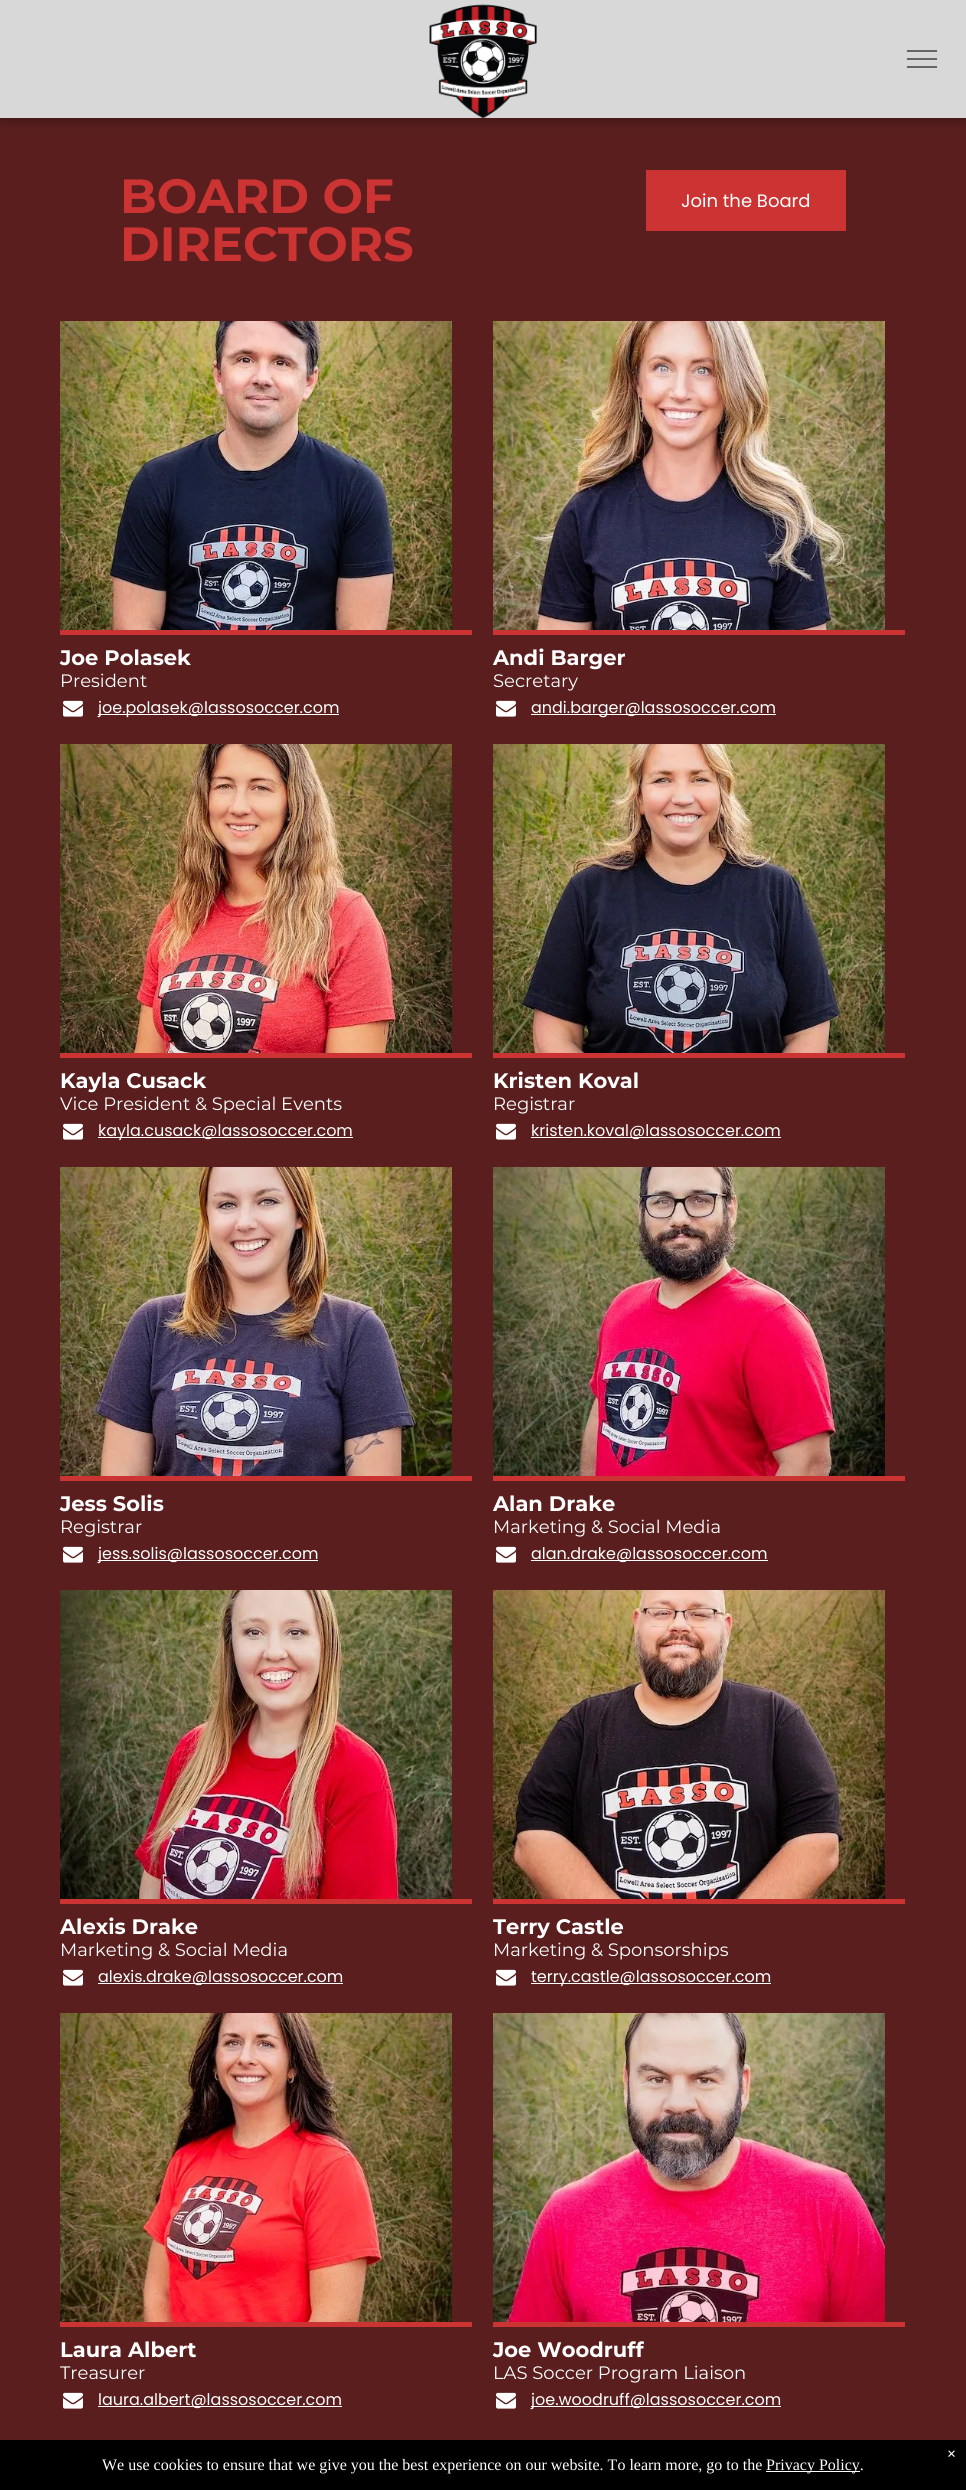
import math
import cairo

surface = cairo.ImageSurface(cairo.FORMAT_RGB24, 966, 2490)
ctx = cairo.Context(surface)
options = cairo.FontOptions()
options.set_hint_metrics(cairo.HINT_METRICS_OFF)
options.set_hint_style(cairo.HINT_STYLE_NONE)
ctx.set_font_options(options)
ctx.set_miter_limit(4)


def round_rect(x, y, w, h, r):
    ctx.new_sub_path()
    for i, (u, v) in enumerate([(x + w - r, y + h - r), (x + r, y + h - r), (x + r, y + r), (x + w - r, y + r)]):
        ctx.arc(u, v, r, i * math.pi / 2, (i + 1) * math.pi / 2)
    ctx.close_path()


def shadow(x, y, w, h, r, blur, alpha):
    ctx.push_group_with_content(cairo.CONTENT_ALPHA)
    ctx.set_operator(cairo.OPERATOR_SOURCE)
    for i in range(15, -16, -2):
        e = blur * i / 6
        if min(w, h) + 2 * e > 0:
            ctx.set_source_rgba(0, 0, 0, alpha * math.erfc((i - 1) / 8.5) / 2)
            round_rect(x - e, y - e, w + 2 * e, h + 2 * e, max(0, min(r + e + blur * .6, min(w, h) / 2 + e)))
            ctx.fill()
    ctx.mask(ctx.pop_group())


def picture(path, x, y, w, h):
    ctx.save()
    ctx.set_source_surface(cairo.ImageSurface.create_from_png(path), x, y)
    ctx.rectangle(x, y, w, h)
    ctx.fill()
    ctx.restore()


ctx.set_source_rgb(0.353, 0.118, 0.118)
ctx.paint()
ctx.set_source_rgb(0, 0, 0)
shadow(0, 3, 966, 118, 0, 5.5, 0.25)
ctx.set_source_rgb(0.847, 0.847, 0.847)
ctx.rectangle(0, 0, 966, 118)
ctx.fill()
picture("img1.png", 429, 4, 108, 114)
ctx.set_source_rgb(0.4, 0.4, 0.4)
ctx.rectangle(907, 50, 30, 2)
ctx.fill()
ctx.rectangle(907, 58, 30, 2)
ctx.fill()
ctx.rectangle(907, 66, 30, 2)
ctx.fill()
ctx.select_font_face("Montserrat", cairo.FONT_SLANT_NORMAL, cairo.FONT_WEIGHT_BOLD)
ctx.set_font_size(48)
ctx.set_source_rgb(0.8, 0.2, 0.2)
ctx.move_to(120, 213)
ctx.show_text("BOARD OF")
ctx.move_to(120, 261)
ctx.show_text("DIRECTORS")
ctx.rectangle(646, 170, 200, 61)
ctx.fill()
ctx.select_font_face("Poppins")
ctx.set_font_size(18)
ctx.set_source_rgb(1, 1, 1)
ctx.move_to(681, 207)
ctx.show_text("Join the Board")
picture("img2.png", 60, 321, 392, 309)
ctx.set_source_rgb(0.8, 0.2, 0.2)
ctx.rectangle(60, 630, 412, 5)
ctx.fill()
ctx.select_font_face("Montserrat", cairo.FONT_SLANT_NORMAL, cairo.FONT_WEIGHT_BOLD)
ctx.set_font_size(21)
ctx.set_source_rgb(1, 1, 1)
ctx.move_to(60, 665)
ctx.show_text("Joe Polasek")
ctx.select_font_face("Montserrat")
ctx.set_font_size(18)
ctx.move_to(60, 687)
ctx.show_text("President")
picture("img3.png", 63, 700, 20, 17)
ctx.rectangle(98, 714, 241, 1)
ctx.fill()
ctx.select_font_face("Poppins")
ctx.set_font_size(16)
ctx.move_to(98, 713)
ctx.show_text("joe.polasek@lassosoccer.com")
picture("img4.png", 493, 321, 392, 309)
ctx.set_source_rgb(0.8, 0.2, 0.2)
ctx.rectangle(493, 630, 412, 5)
ctx.fill()
ctx.select_font_face("Montserrat", cairo.FONT_SLANT_NORMAL, cairo.FONT_WEIGHT_BOLD)
ctx.set_font_size(21)
ctx.set_source_rgb(1, 1, 1)
ctx.move_to(493, 665)
ctx.show_text("Andi Barger")
ctx.select_font_face("Montserrat")
ctx.set_font_size(18)
ctx.move_to(493, 687)
ctx.show_text("Secretary")
picture("img3.png", 496, 700, 20, 17)
ctx.rectangle(531, 714, 245, 1)
ctx.fill()
ctx.select_font_face("Poppins")
ctx.set_font_size(16)
ctx.move_to(531, 713)
ctx.show_text("andi.barger@lassosoccer.com")
picture("img5.png", 60, 744, 392, 309)
ctx.set_source_rgb(0.8, 0.2, 0.2)
ctx.rectangle(60, 1053, 412, 5)
ctx.fill()
ctx.select_font_face("Montserrat", cairo.FONT_SLANT_NORMAL, cairo.FONT_WEIGHT_BOLD)
ctx.set_font_size(21)
ctx.set_source_rgb(1, 1, 1)
ctx.move_to(60, 1088)
ctx.show_text("Kayla Cusack")
ctx.select_font_face("Montserrat")
ctx.set_font_size(18)
ctx.move_to(60, 1110)
ctx.show_text("Vice President & Special Events")
picture("img3.png", 63, 1123, 20, 17)
ctx.rectangle(98, 1137, 255, 1)
ctx.fill()
ctx.select_font_face("Poppins")
ctx.set_font_size(16)
ctx.move_to(98, 1136)
ctx.show_text("kayla.cusack@lassosoccer.com")
picture("img6.png", 493, 744, 392, 309)
ctx.set_source_rgb(0.8, 0.2, 0.2)
ctx.rectangle(493, 1053, 412, 5)
ctx.fill()
ctx.select_font_face("Montserrat", cairo.FONT_SLANT_NORMAL, cairo.FONT_WEIGHT_BOLD)
ctx.set_font_size(21)
ctx.set_source_rgb(1, 1, 1)
ctx.move_to(493, 1088)
ctx.show_text("Kristen Koval")
ctx.select_font_face("Montserrat")
ctx.set_font_size(18)
ctx.move_to(493, 1110)
ctx.show_text("Registrar")
picture("img3.png", 496, 1123, 20, 17)
ctx.rectangle(531, 1137, 250, 1)
ctx.fill()
ctx.select_font_face("Poppins")
ctx.set_font_size(16)
ctx.move_to(531, 1136)
ctx.show_text("kristen.koval@lassosoccer.com")
picture("img7.png", 60, 1167, 392, 309)
ctx.set_source_rgb(0.8, 0.2, 0.2)
ctx.rectangle(60, 1476, 412, 5)
ctx.fill()
ctx.select_font_face("Montserrat", cairo.FONT_SLANT_NORMAL, cairo.FONT_WEIGHT_BOLD)
ctx.set_font_size(21)
ctx.set_source_rgb(1, 1, 1)
ctx.move_to(60, 1511)
ctx.show_text("Jess Solis")
ctx.select_font_face("Montserrat")
ctx.set_font_size(18)
ctx.move_to(60, 1533)
ctx.show_text("Registrar")
picture("img3.png", 63, 1546, 20, 17)
ctx.rectangle(98, 1560, 220, 1)
ctx.fill()
ctx.select_font_face("Poppins")
ctx.set_font_size(16)
ctx.move_to(98, 1559)
ctx.show_text("jess.solis@lassosoccer.com")
picture("img8.png", 493, 1167, 392, 309)
ctx.set_source_rgb(0.8, 0.2, 0.2)
ctx.rectangle(493, 1476, 412, 5)
ctx.fill()
ctx.select_font_face("Montserrat", cairo.FONT_SLANT_NORMAL, cairo.FONT_WEIGHT_BOLD)
ctx.set_font_size(21)
ctx.set_source_rgb(1, 1, 1)
ctx.move_to(493, 1511)
ctx.show_text("Alan Drake")
ctx.select_font_face("Montserrat")
ctx.set_font_size(18)
ctx.move_to(493, 1533)
ctx.show_text("Marketing & Social Media")
picture("img3.png", 496, 1546, 20, 17)
ctx.rectangle(531, 1560, 237, 1)
ctx.fill()
ctx.select_font_face("Poppins")
ctx.set_font_size(16)
ctx.move_to(531, 1559)
ctx.show_text("alan.drake@lassosoccer.com")
picture("img9.png", 60, 1590, 392, 309)
ctx.set_source_rgb(0.8, 0.2, 0.2)
ctx.rectangle(60, 1899, 412, 5)
ctx.fill()
ctx.select_font_face("Montserrat", cairo.FONT_SLANT_NORMAL, cairo.FONT_WEIGHT_BOLD)
ctx.set_font_size(21)
ctx.set_source_rgb(1, 1, 1)
ctx.move_to(60, 1934)
ctx.show_text("Alexis Drake")
ctx.select_font_face("Montserrat")
ctx.set_font_size(18)
ctx.move_to(60, 1956)
ctx.show_text("Marketing & Social Media")
picture("img3.png", 63, 1969, 20, 17)
ctx.rectangle(98, 1983, 245, 1)
ctx.fill()
ctx.select_font_face("Poppins")
ctx.set_font_size(16)
ctx.move_to(98, 1982)
ctx.show_text("alexis.drake@lassosoccer.com")
picture("img10.png", 493, 1590, 392, 309)
ctx.set_source_rgb(0.8, 0.2, 0.2)
ctx.rectangle(493, 1899, 412, 5)
ctx.fill()
ctx.select_font_face("Montserrat", cairo.FONT_SLANT_NORMAL, cairo.FONT_WEIGHT_BOLD)
ctx.set_font_size(21)
ctx.set_source_rgb(1, 1, 1)
ctx.move_to(493, 1934)
ctx.show_text("Terry Castle")
ctx.select_font_face("Montserrat")
ctx.set_font_size(18)
ctx.move_to(493, 1956)
ctx.show_text("Marketing & Sponsorships")
picture("img3.png", 496, 1969, 20, 17)
ctx.rectangle(531, 1983, 240, 1)
ctx.fill()
ctx.select_font_face("Poppins")
ctx.set_font_size(16)
ctx.move_to(531, 1982)
ctx.show_text("terry.castle@lassosoccer.com")
picture("img11.png", 60, 2013, 392, 309)
ctx.set_source_rgb(0.8, 0.2, 0.2)
ctx.rectangle(60, 2322, 412, 5)
ctx.fill()
ctx.select_font_face("Montserrat", cairo.FONT_SLANT_NORMAL, cairo.FONT_WEIGHT_BOLD)
ctx.set_font_size(21)
ctx.set_source_rgb(1, 1, 1)
ctx.move_to(60, 2357)
ctx.show_text("Laura Albert")
ctx.select_font_face("Montserrat")
ctx.set_font_size(18)
ctx.move_to(60, 2379)
ctx.show_text("Treasurer")
picture("img3.png", 63, 2392, 20, 17)
ctx.rectangle(98, 2406, 244, 1)
ctx.fill()
ctx.select_font_face("Poppins")
ctx.set_font_size(16)
ctx.move_to(98, 2405)
ctx.show_text("laura.albert@lassosoccer.com")
picture("img12.png", 493, 2013, 392, 309)
ctx.set_source_rgb(0.8, 0.2, 0.2)
ctx.rectangle(493, 2322, 412, 5)
ctx.fill()
ctx.select_font_face("Montserrat", cairo.FONT_SLANT_NORMAL, cairo.FONT_WEIGHT_BOLD)
ctx.set_font_size(21)
ctx.set_source_rgb(1, 1, 1)
ctx.move_to(493, 2357)
ctx.show_text("Joe Woodruff")
ctx.select_font_face("Montserrat")
ctx.set_font_size(18)
ctx.move_to(493, 2379)
ctx.show_text("LAS Soccer Program Liaison")
picture("img3.png", 496, 2392, 20, 17)
ctx.rectangle(531, 2406, 250, 1)
ctx.fill()
ctx.select_font_face("Poppins")
ctx.set_font_size(16)
ctx.move_to(531, 2405)
ctx.show_text("joe.woodruff@lassosoccer.com")
ctx.set_source_rgb(0, 0, 0)
ctx.rectangle(0, 2440, 966, 50)
ctx.fill()
ctx.select_font_face("Liberation Serif", cairo.FONT_SLANT_NORMAL, cairo.FONT_WEIGHT_BOLD)
ctx.set_source_rgb(1, 1, 1)
ctx.move_to(947, 2459)
ctx.show_text("×")
ctx.select_font_face("Liberation Serif")
ctx.move_to(102, 2470)
ctx.show_text("We use cookies to ensure that we give you the best experience on our website. To learn more, go to the")
ctx.rectangle(766, 2471, 94, 1)
ctx.fill()
ctx.move_to(766, 2470)
ctx.show_text("Privacy Policy.")
surface.write_to_png("page.png")
